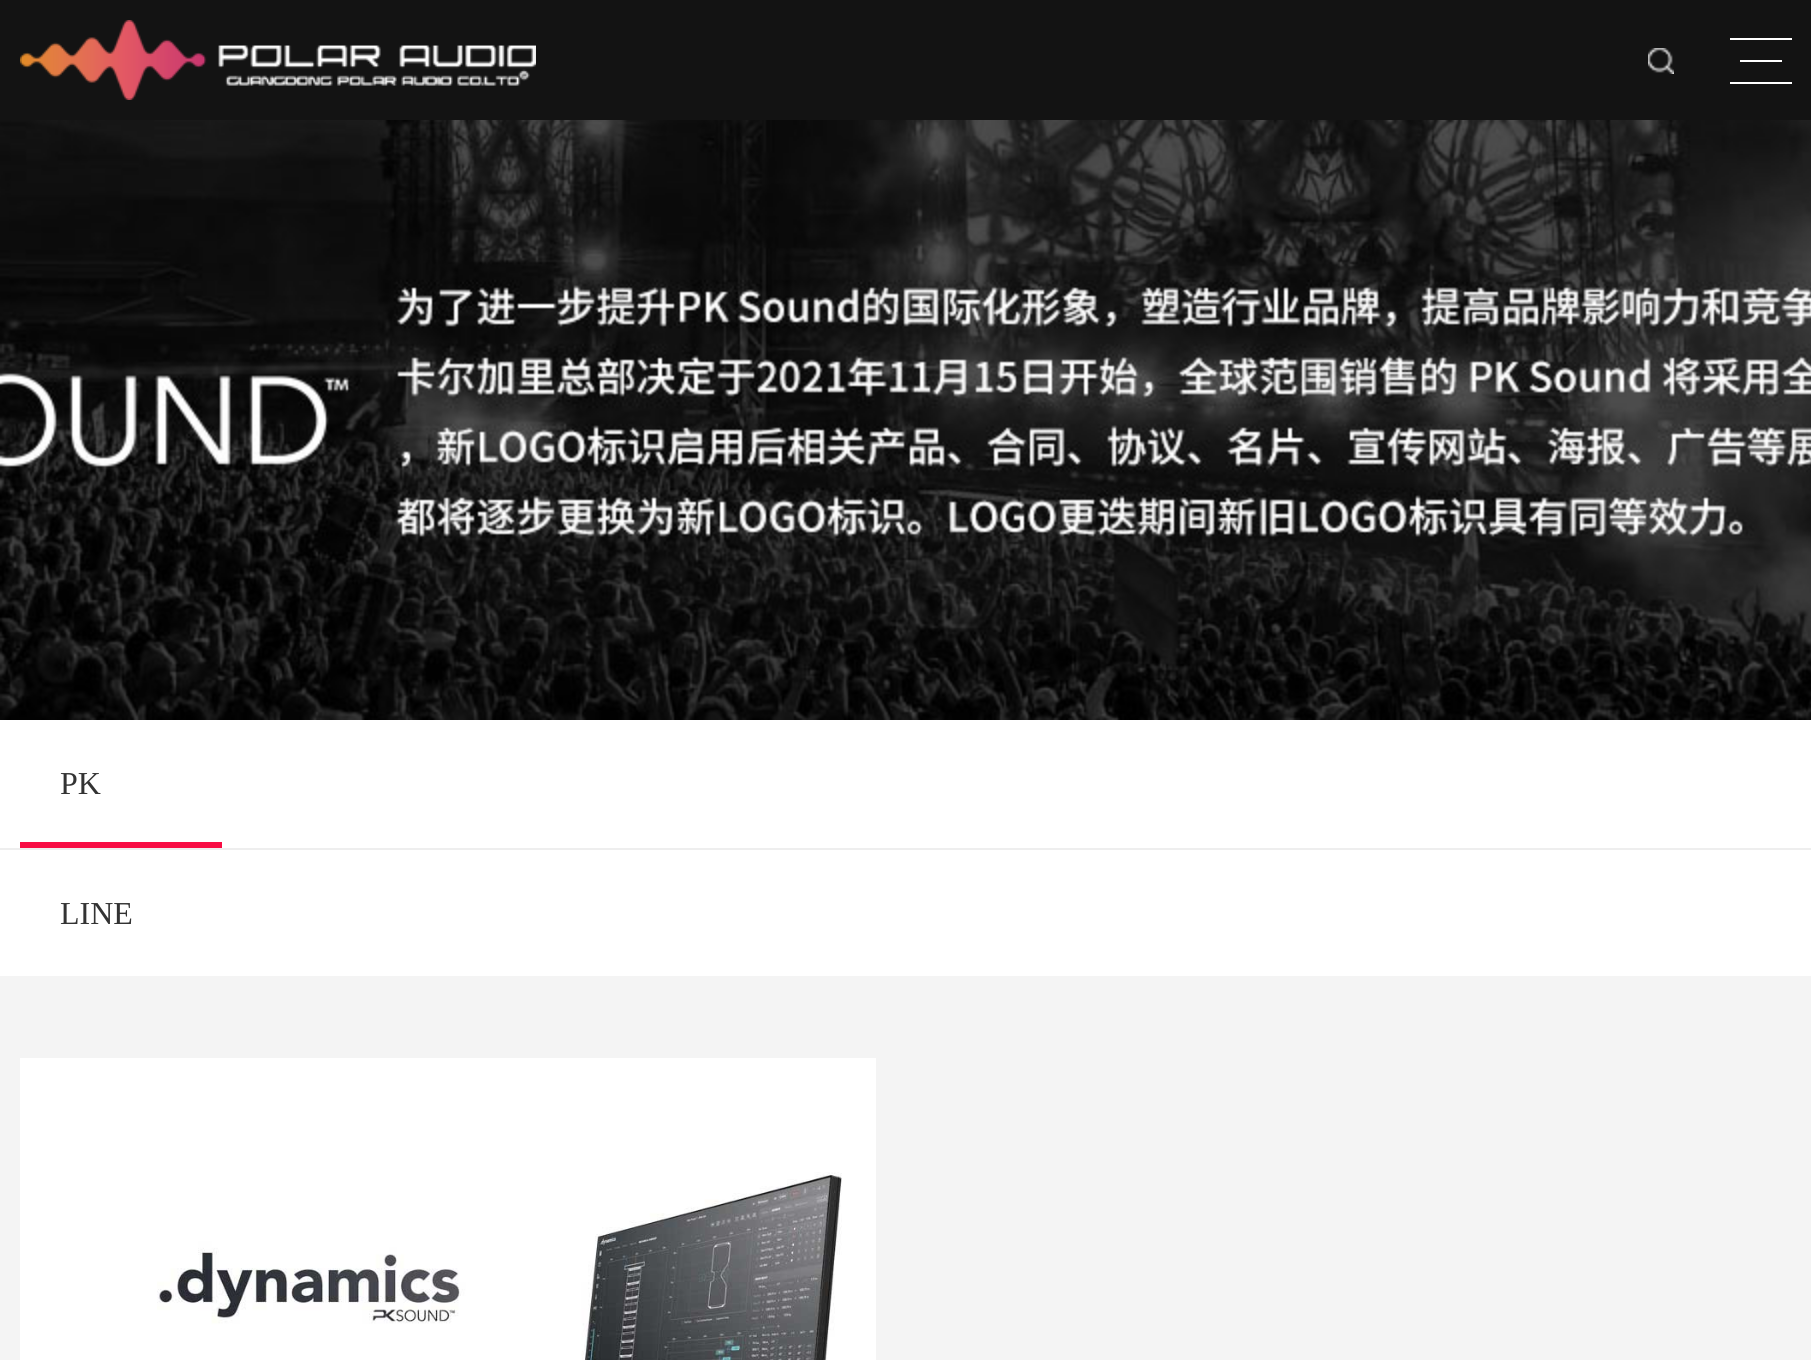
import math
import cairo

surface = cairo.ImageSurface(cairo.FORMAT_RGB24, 1811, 1360)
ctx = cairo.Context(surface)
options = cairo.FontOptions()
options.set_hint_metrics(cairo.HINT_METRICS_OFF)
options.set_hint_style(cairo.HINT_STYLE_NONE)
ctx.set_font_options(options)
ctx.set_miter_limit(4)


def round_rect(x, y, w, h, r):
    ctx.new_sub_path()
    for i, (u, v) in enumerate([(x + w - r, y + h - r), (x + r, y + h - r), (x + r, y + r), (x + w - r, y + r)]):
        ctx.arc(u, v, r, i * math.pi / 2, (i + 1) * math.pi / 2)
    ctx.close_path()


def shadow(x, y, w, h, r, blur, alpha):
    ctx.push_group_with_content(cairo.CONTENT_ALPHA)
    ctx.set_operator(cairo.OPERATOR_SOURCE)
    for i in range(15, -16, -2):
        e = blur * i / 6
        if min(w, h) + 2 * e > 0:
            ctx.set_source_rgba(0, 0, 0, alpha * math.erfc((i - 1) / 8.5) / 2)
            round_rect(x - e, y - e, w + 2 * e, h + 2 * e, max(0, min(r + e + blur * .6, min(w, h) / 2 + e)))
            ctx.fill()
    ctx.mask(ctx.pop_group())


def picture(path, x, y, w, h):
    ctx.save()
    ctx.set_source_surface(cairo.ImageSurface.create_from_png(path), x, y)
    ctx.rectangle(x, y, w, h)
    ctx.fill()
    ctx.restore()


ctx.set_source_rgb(0.957, 0.957, 0.957)
ctx.paint()
ctx.set_source_rgb(0.078, 0.078, 0.078)
ctx.rectangle(0, 0, 1811, 120)
ctx.fill()
picture("img1.png", 20, 20, 516, 80)
picture("img2.png", 1648, 48, 26, 26)
ctx.set_source_rgb(1, 1, 1)
ctx.rectangle(1730, 38, 62, 2)
ctx.fill()
ctx.rectangle(1740, 60, 42, 2)
ctx.fill()
ctx.rectangle(1730, 82, 62, 2)
ctx.fill()
picture("img3.png", 0, 120, 1811, 600)
ctx.set_source_rgb(0, 0, 0)
shadow(0, 722, 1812, 128, 0, 3, 0.1)
ctx.set_source_rgb(1, 1, 1)
ctx.rectangle(0, 720, 1811, 128)
ctx.fill()
ctx.set_source_rgb(0.969, 0.051, 0.267)
ctx.rectangle(20, 842, 202, 6)
ctx.fill()
ctx.select_font_face("Liberation Serif")
ctx.set_font_size(32)
ctx.set_source_rgb(0.2, 0.2, 0.2)
ctx.move_to(60, 794)
ctx.show_text("PK")
ctx.set_source_rgb(1, 1, 1)
ctx.rectangle(0, 850, 1811, 126)
ctx.fill()
ctx.set_source_rgb(0.933, 0.933, 0.933)
ctx.rectangle(0, 848, 1811, 2)
ctx.fill()
ctx.set_source_rgb(0.2, 0.2, 0.2)
ctx.move_to(60, 924)
ctx.show_text("LINE")
ctx.set_source_rgb(1, 1, 1)
ctx.rectangle(20, 1058, 856, 302)
ctx.fill()
picture("img4.png", 157, 1172, 685, 188)
surface.write_to_png("page.png")
